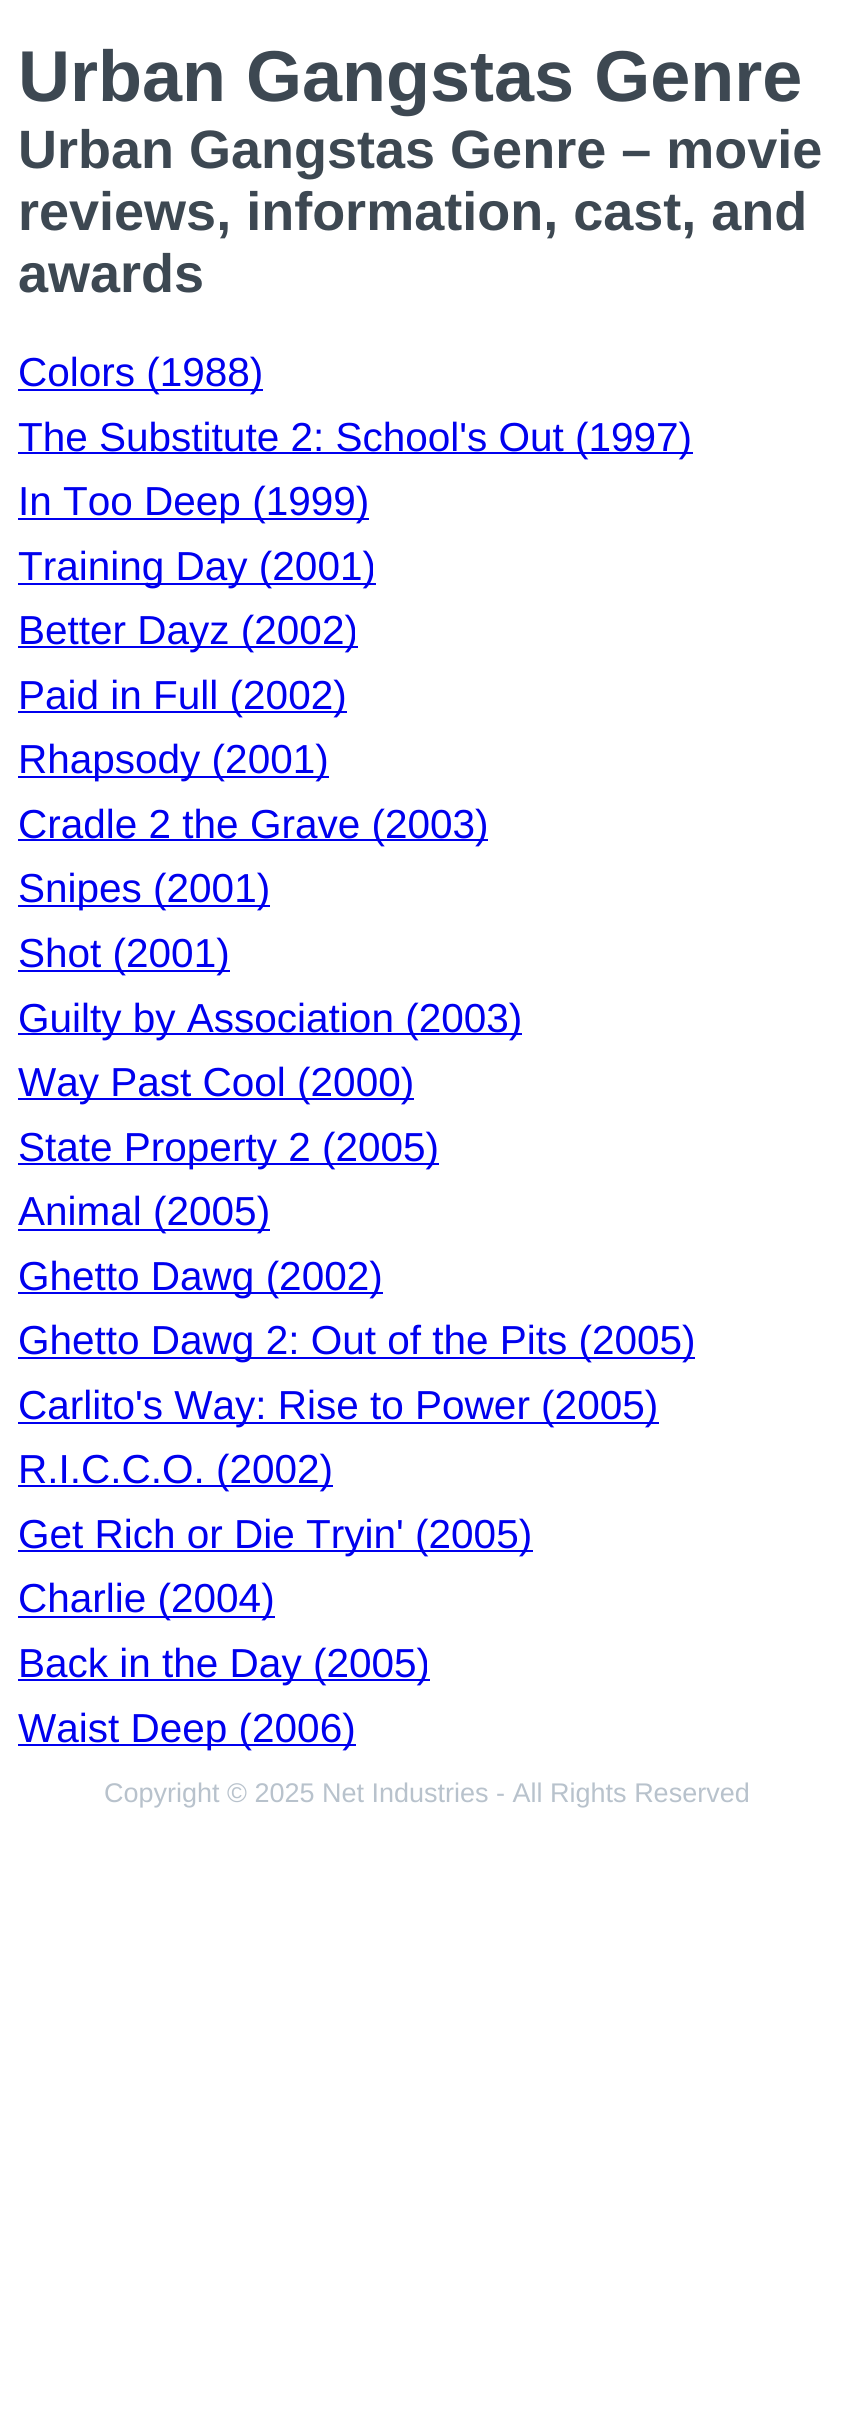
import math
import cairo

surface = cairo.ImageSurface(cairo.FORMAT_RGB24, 851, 2419)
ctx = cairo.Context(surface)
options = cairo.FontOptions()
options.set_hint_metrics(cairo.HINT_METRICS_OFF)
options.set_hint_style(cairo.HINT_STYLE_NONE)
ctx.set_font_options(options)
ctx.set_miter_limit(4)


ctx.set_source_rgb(1, 1, 1)
ctx.paint()
ctx.select_font_face("Liberation Sans", cairo.FONT_SLANT_NORMAL, cairo.FONT_WEIGHT_BOLD)
ctx.set_font_size(72)
ctx.set_source_rgb(0.239, 0.282, 0.322)
ctx.move_to(18, 101)
ctx.show_text("Urban Gangstas Genre")
ctx.set_font_size(54)
ctx.move_to(18, 168)
ctx.show_text("Urban Gangstas Genre – movie")
ctx.move_to(18, 230)
ctx.show_text("reviews, information, cast, and")
ctx.move_to(18, 292)
ctx.show_text("awards")
ctx.set_source_rgb(0, 0, 0.933)
ctx.rectangle(18, 389, 245, 2)
ctx.fill()
ctx.select_font_face("Liberation Sans")
ctx.set_font_size(40.5)
ctx.move_to(18, 386)
ctx.show_text("Colors (1988)")
ctx.rectangle(18, 452, 675, 2)
ctx.fill()
ctx.move_to(18, 451)
ctx.show_text("The Substitute 2: School's Out (1997)")
ctx.rectangle(18, 518, 351, 2)
ctx.fill()
ctx.move_to(18, 515)
ctx.show_text("In Too Deep (1999)")
ctx.rectangle(18, 583, 358, 2)
ctx.fill()
ctx.move_to(18, 580)
ctx.show_text("Training Day (2001)")
ctx.rectangle(18, 646, 340, 2)
ctx.fill()
ctx.move_to(18, 644)
ctx.show_text("Better Dayz (2002)")
ctx.rectangle(18, 711, 329, 2)
ctx.fill()
ctx.move_to(18, 709)
ctx.show_text("Paid in Full (2002)")
ctx.rectangle(18, 776, 311, 2)
ctx.fill()
ctx.move_to(18, 773)
ctx.show_text("Rhapsody (2001)")
ctx.rectangle(18, 839, 470, 2)
ctx.fill()
ctx.move_to(18, 838)
ctx.show_text("Cradle 2 the Grave (2003)")
ctx.rectangle(18, 905, 252, 2)
ctx.fill()
ctx.move_to(18, 902)
ctx.show_text("Snipes (2001)")
ctx.rectangle(18, 970, 212, 2)
ctx.fill()
ctx.move_to(18, 967)
ctx.show_text("Shot (2001)")
ctx.rectangle(18, 1033, 504, 2)
ctx.fill()
ctx.move_to(18, 1032)
ctx.show_text("Guilty by Association (2003)")
ctx.rectangle(18, 1098, 396, 2)
ctx.fill()
ctx.move_to(18, 1096)
ctx.show_text("Way Past Cool (2000)")
ctx.rectangle(18, 1163, 421, 2)
ctx.fill()
ctx.move_to(18, 1161)
ctx.show_text("State Property 2 (2005)")
ctx.rectangle(18, 1229, 252, 2)
ctx.fill()
ctx.move_to(18, 1225)
ctx.show_text("Animal (2005)")
ctx.rectangle(18, 1292, 365, 2)
ctx.fill()
ctx.move_to(18, 1290)
ctx.show_text("Ghetto Dawg (2002)")
ctx.rectangle(18, 1357, 677, 2)
ctx.fill()
ctx.move_to(18, 1354)
ctx.show_text("Ghetto Dawg 2: Out of the Pits (2005)")
ctx.rectangle(18, 1422, 641, 2)
ctx.fill()
ctx.move_to(18, 1419)
ctx.show_text("Carlito's Way: Rise to Power (2005)")
ctx.rectangle(18, 1485, 315, 2)
ctx.fill()
ctx.move_to(18, 1483)
ctx.show_text("R.I.C.C.O. (2002)")
ctx.rectangle(18, 1550, 515, 2)
ctx.fill()
ctx.move_to(18, 1548)
ctx.show_text("Get Rich or Die Tryin' (2005)")
ctx.rectangle(18, 1616, 257, 2)
ctx.fill()
ctx.move_to(18, 1612)
ctx.show_text("Charlie (2004)")
ctx.rectangle(18, 1679, 412, 2)
ctx.fill()
ctx.move_to(18, 1677)
ctx.show_text("Back in the Day (2005)")
ctx.rectangle(18, 1744, 338, 2)
ctx.fill()
ctx.move_to(18, 1742)
ctx.show_text("Waist Deep (2006)")
ctx.set_font_size(27)
ctx.set_source_rgb(0.722, 0.761, 0.8)
ctx.move_to(104, 1802)
ctx.show_text("Copyright © 2025 Net Industries - All Rights Reserved")
surface.write_to_png("page.png")
